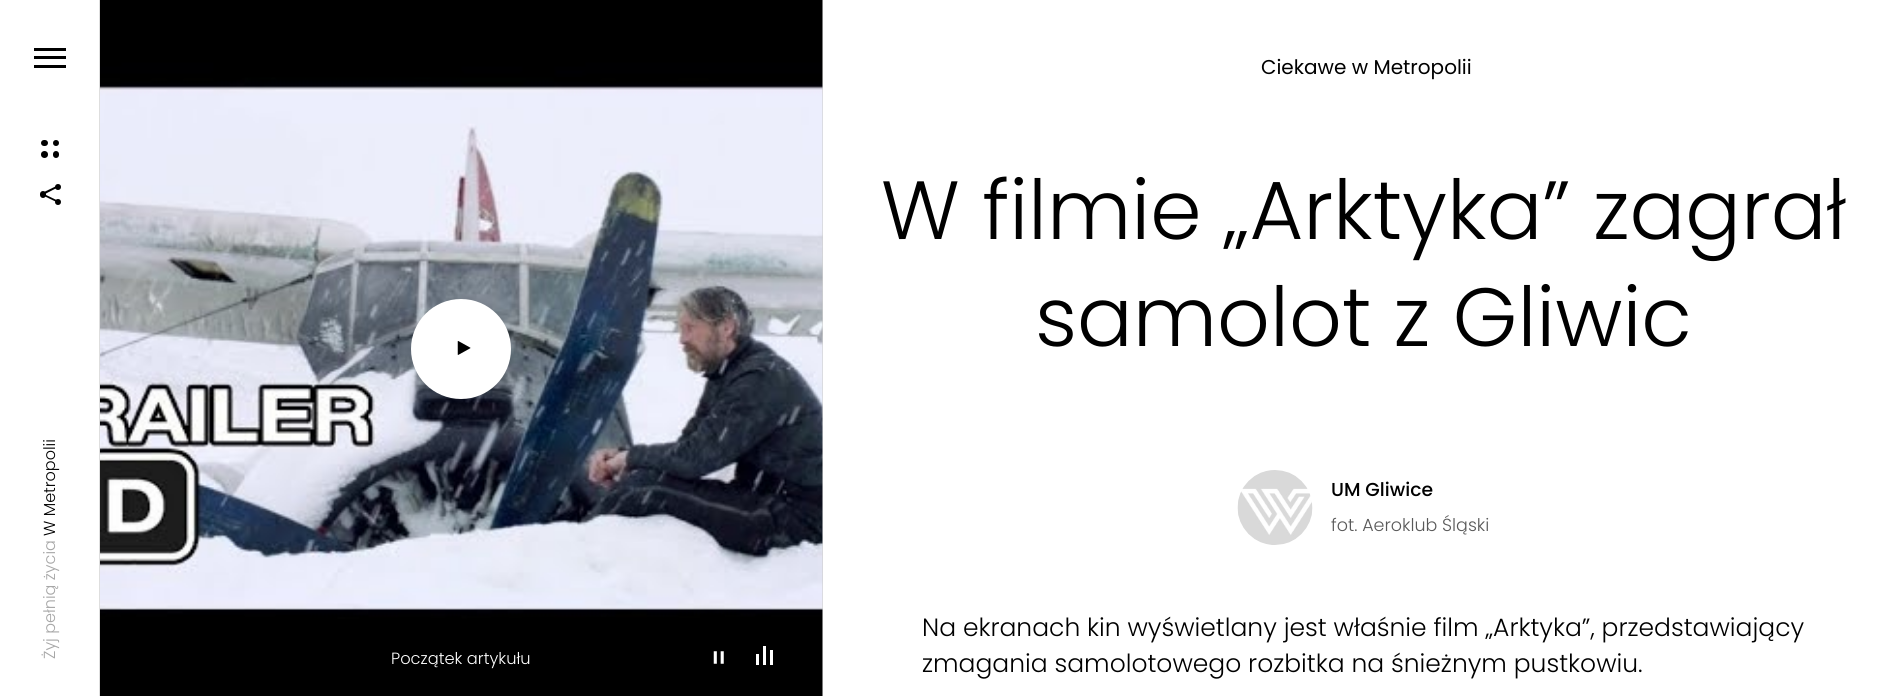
import math
import cairo

surface = cairo.ImageSurface(cairo.FORMAT_RGB24, 1904, 696)
ctx = cairo.Context(surface)
options = cairo.FontOptions()
options.set_hint_metrics(cairo.HINT_METRICS_OFF)
options.set_hint_style(cairo.HINT_STYLE_NONE)
ctx.set_font_options(options)
ctx.set_miter_limit(4)


def round_rect(x, y, w, h, r):
    ctx.new_sub_path()
    for i, (u, v) in enumerate([(x + w - r, y + h - r), (x + r, y + h - r), (x + r, y + r), (x + w - r, y + r)]):
        ctx.arc(u, v, r, i * math.pi / 2, (i + 1) * math.pi / 2)
    ctx.close_path()


def picture(path, x, y, w, h):
    ctx.save()
    ctx.set_source_surface(cairo.ImageSurface.create_from_png(path), x, y)
    ctx.rectangle(x, y, w, h)
    ctx.fill()
    ctx.restore()


ctx.set_source_rgb(1, 1, 1)
ctx.paint()
ctx.set_source_rgb(0.851, 0.851, 0.851)
ctx.rectangle(822, 0, 1, 696)
ctx.fill()
ctx.set_source_rgb(0, 0, 0)
ctx.rectangle(34, 56, 32, 3)
ctx.fill()
ctx.rectangle(34, 48, 32, 3)
ctx.fill()
ctx.rectangle(34, 65, 32, 3)
ctx.fill()
ctx.arc(56, 143, 3, 0, 2 * math.pi)
ctx.fill()
ctx.arc(44.5, 154.5, 3.5, 0, 2 * math.pi)
ctx.fill()
round_rect(41, 140, 7, 6, 3)
ctx.fill()
round_rect(53, 151, 6, 7, 3)
ctx.fill()
round_rect(40, 191, 6, 7, 3)
ctx.fill()
ctx.arc(58, 187, 3, 0, 2 * math.pi)
ctx.fill()
ctx.arc(58, 202, 3, 0, 2 * math.pi)
ctx.fill()
ctx.new_path()
ctx.move_to(44, 194)
ctx.line_to(59.5, 201.5)
ctx.line_to(58.5, 203)
ctx.line_to(43, 195.5)
ctx.close_path()
ctx.fill()
ctx.new_path()
ctx.move_to(43, 192.5)
ctx.line_to(58.5, 185)
ctx.line_to(59.5, 186.5)
ctx.line_to(44, 194.5)
ctx.close_path()
ctx.fill()
ctx.select_font_face("Poppins Light")
ctx.set_font_size(16)
ctx.save()
ctx.translate(55, 536)
ctx.rotate(-90 * math.pi / 180)
ctx.move_to(0, 0)
ctx.show_text("W Metropolii")
ctx.restore()
ctx.set_source_rgb(0.651, 0.651, 0.651)
ctx.save()
ctx.translate(55, 659)
ctx.rotate(-90 * math.pi / 180)
ctx.move_to(0, 0)
ctx.show_text("Żyj pełnią życia")
ctx.restore()
ctx.set_source_rgb(0.871, 0.871, 0.871)
ctx.rectangle(99, 0, 1, 696)
ctx.fill()
picture("img1.png", 822, 0, 1, 696)
picture("img2.png", 100, 0, 723, 696)
ctx.set_source_rgb(1, 1, 1)
ctx.arc(461, 349, 50, 0, 2 * math.pi)
ctx.fill()
picture("img3.png", 457, 341, 14, 14)
ctx.set_font_size(16.25)
ctx.move_to(391, 664)
ctx.show_text("Początek artykułu")
picture("img4.png", 713, 651, 11, 13)
ctx.rectangle(756, 654, 3, 11)
ctx.fill()
ctx.rectangle(763, 646, 3, 19)
ctx.fill()
ctx.rectangle(770, 650, 3, 15)
ctx.fill()
ctx.select_font_face("Poppins")
ctx.set_font_size(20)
ctx.set_source_rgb(0, 0, 0)
ctx.move_to(1261, 74)
ctx.show_text("Ciekawe w Metropolii")
ctx.select_font_face("Poppins Light")
ctx.set_font_size(82.5)
ctx.move_to(881, 239)
ctx.show_text("W filmie „Arktyka” zagrał")
ctx.move_to(1035, 346)
ctx.show_text("samolot z Gliwic")
picture("img5.png", 1237, 470, 76, 75)
ctx.select_font_face("Poppins Medium")
ctx.set_font_size(18.75)
ctx.move_to(1331, 496)
ctx.show_text("UM Gliwice")
ctx.select_font_face("Poppins Light")
ctx.set_font_size(17.5)
ctx.set_source_rgb(0.349, 0.349, 0.349)
ctx.move_to(1331, 531)
ctx.show_text("fot. Aeroklub Śląski")
ctx.set_font_size(25)
ctx.set_source_rgb(0, 0, 0)
ctx.move_to(922, 636)
ctx.show_text("Na ekranach kin wyświetlany jest właśnie film „Arktyka”, przedstawiający")
ctx.move_to(922, 672)
ctx.show_text("zmagania samolotowego rozbitka na śnieżnym pustkowiu.")
surface.write_to_png("page.png")
